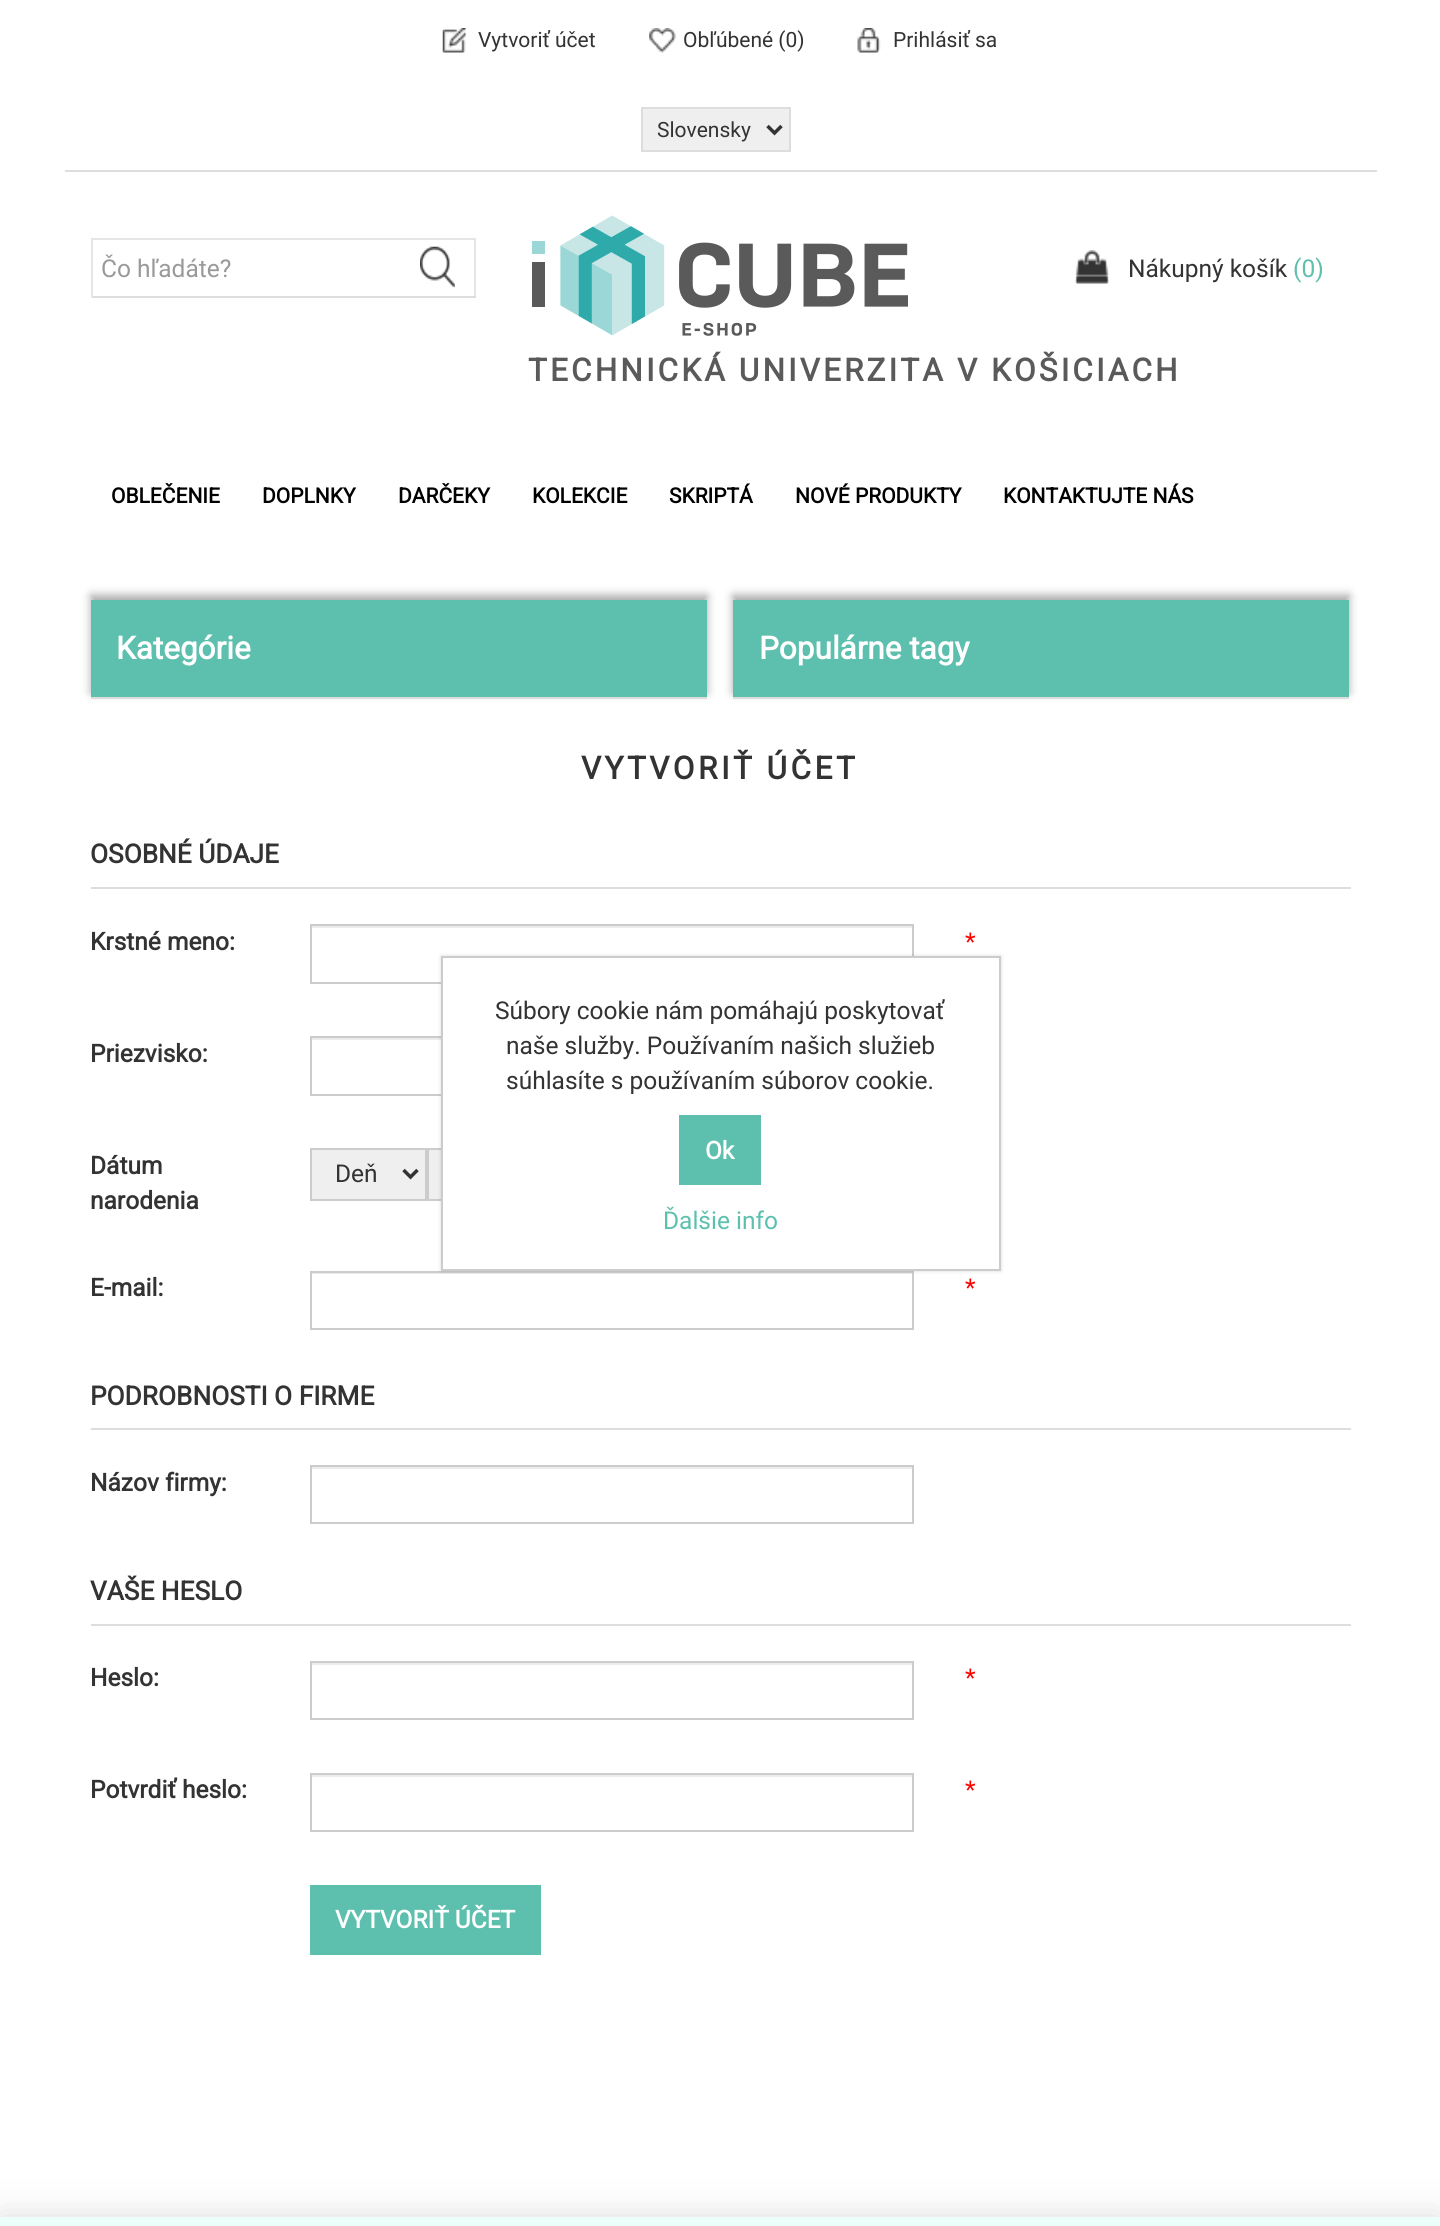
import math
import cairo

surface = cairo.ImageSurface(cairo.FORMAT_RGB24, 1440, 2226)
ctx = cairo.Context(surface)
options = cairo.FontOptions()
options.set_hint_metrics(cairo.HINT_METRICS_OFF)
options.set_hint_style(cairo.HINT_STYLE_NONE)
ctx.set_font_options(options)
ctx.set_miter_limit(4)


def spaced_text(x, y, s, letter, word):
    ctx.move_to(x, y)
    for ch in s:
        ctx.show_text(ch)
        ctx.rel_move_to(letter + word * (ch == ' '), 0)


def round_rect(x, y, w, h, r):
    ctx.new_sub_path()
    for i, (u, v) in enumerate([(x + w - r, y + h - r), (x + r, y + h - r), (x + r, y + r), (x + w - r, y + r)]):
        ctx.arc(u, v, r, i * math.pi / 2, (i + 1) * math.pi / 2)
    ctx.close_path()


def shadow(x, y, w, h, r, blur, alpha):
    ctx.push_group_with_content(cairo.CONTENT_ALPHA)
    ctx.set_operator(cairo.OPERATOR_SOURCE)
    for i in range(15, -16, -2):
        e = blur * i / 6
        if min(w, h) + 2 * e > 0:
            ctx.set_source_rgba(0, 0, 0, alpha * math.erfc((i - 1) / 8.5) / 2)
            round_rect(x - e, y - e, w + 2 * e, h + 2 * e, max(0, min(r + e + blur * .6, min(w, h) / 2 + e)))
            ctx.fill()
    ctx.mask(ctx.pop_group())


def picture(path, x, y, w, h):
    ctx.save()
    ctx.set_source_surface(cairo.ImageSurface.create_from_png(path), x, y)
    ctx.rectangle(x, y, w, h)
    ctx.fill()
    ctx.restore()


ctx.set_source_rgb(1, 1, 1)
ctx.paint()
picture("img1.png", 442, 28, 24, 25)
ctx.select_font_face("Roboto")
ctx.set_font_size(21)
ctx.set_source_rgb(0.2, 0.2, 0.2)
ctx.move_to(478, 47)
ctx.show_text("Vytvoriť účet")
picture("img2.png", 649, 28, 27, 25)
ctx.move_to(683, 47)
ctx.show_text("Obľúbené (0)")
picture("img3.png", 857, 28, 24, 25)
ctx.move_to(893, 47)
ctx.show_text("Prihlásiť sa")
ctx.set_source_rgb(0.867, 0.867, 0.867)
ctx.rectangle(65, 170, 1312, 2)
ctx.fill()
ctx.set_source_rgb(0.937, 0.937, 0.937)
ctx.rectangle(642, 108, 148, 43)
ctx.fill_preserve()
ctx.set_source_rgb(0.867, 0.867, 0.867)
ctx.stroke()
ctx.new_path()
ctx.move_to(767.5, 126)
ctx.line_to(774.5, 133)
ctx.line_to(781.5, 126)
ctx.set_source_rgb(0.2, 0.2, 0.2)
ctx.set_line_width(3.5)
ctx.stroke()
ctx.move_to(657, 137)
ctx.show_text("Slovensky")
ctx.set_source_rgb(0.898, 0.898, 0.898)
ctx.rectangle(91, 238, 385, 2)
ctx.fill()
ctx.rectangle(474, 238, 2, 60)
ctx.fill()
ctx.set_source_rgb(0.867, 0.867, 0.867)
ctx.rectangle(91, 296, 385, 2)
ctx.fill()
ctx.set_source_rgb(0.898, 0.898, 0.898)
ctx.rectangle(91, 238, 2, 60)
ctx.fill()
ctx.set_font_size(24.5)
ctx.set_source_rgb(0.6, 0.6, 0.6)
ctx.move_to(101, 277)
ctx.show_text("Čo hľadáte?")
picture("img4.png", 420, 246, 35, 42)
picture("img5.png", 1074, 250, 36, 34)
ctx.set_source_rgb(0.2, 0.2, 0.2)
ctx.move_to(1128, 277)
ctx.show_text("Nákupný košík")
ctx.set_source_rgb(0.365, 0.749, 0.678)
ctx.move_to(1293, 277)
ctx.show_text("(0)")
picture("img6.png", 532, 215, 376, 121)
ctx.select_font_face("Roboto", cairo.FONT_SLANT_NORMAL, cairo.FONT_WEIGHT_BOLD)
ctx.set_font_size(31.5)
ctx.set_source_rgb(0.353, 0.353, 0.353)
spaced_text(528, 381, "TECHNICKÁ UNIVERZITA V KOŠICIACH", 3.15, 0)
ctx.set_font_size(21)
ctx.set_source_rgb(0, 0, 0)
ctx.move_to(111, 503)
ctx.show_text("OBLEČENIE")
ctx.move_to(262, 503)
ctx.show_text("DOPLNKY")
ctx.move_to(398, 503)
ctx.show_text("DARČEKY")
ctx.move_to(532, 503)
ctx.show_text("KOLEKCIE")
ctx.move_to(669, 503)
ctx.show_text("SKRIPTÁ")
ctx.move_to(795, 503)
ctx.show_text("NOVÉ PRODUKTY")
ctx.move_to(1003, 503)
ctx.show_text("KONTAKTUJTE NÁS")
ctx.set_source_rgb(0.667, 0.667, 0.667)
shadow(91, 595, 616, 98, 0, 4.5, 1)
ctx.set_source_rgb(0.365, 0.749, 0.678)
ctx.rectangle(91, 600, 616, 97)
ctx.fill()
ctx.set_source_rgb(0.867, 0.867, 0.867)
ctx.rectangle(91, 697, 616, 2)
ctx.fill()
ctx.set_font_size(31.5)
ctx.set_source_rgb(1, 1, 1)
ctx.move_to(116, 659)
ctx.show_text("Kategórie")
ctx.set_source_rgb(0.667, 0.667, 0.667)
shadow(733, 595, 616, 98, 0, 4.5, 1)
ctx.set_source_rgb(0.365, 0.749, 0.678)
ctx.rectangle(733, 600, 616, 97)
ctx.fill()
ctx.set_source_rgb(0.867, 0.867, 0.867)
ctx.rectangle(733, 697, 616, 2)
ctx.fill()
ctx.set_source_rgb(1, 1, 1)
ctx.move_to(759, 659)
ctx.show_text("Populárne tagy")
ctx.set_source_rgb(0.2, 0.2, 0.2)
spaced_text(581, 779, "VYTVORIŤ ÚČET", 3.5, 0)
ctx.set_source_rgb(0.867, 0.867, 0.867)
ctx.rectangle(91, 887, 1260, 2)
ctx.fill()
ctx.set_font_size(26.25)
ctx.set_source_rgb(0.2, 0.2, 0.2)
ctx.move_to(90, 863)
ctx.show_text("OSOBNÉ ÚDAJE")
ctx.set_font_size(24.5)
ctx.move_to(90, 950)
ctx.show_text("Krstné meno:")
ctx.set_source_rgb(0.925, 0.925, 0.925)
ctx.rectangle(312, 926, 600, 2)
ctx.fill()
ctx.rectangle(311, 925, 602, 58)
ctx.set_source_rgb(0.8, 0.8, 0.8)
ctx.set_line_width(2)
ctx.stroke()
ctx.select_font_face("Roboto")
ctx.set_source_rgb(1, 0, 0)
ctx.move_to(965, 950)
ctx.show_text("*")
ctx.select_font_face("Roboto", cairo.FONT_SLANT_NORMAL, cairo.FONT_WEIGHT_BOLD)
ctx.set_source_rgb(0.2, 0.2, 0.2)
ctx.move_to(90, 1062)
ctx.show_text("Priezvisko:")
ctx.set_source_rgb(0.925, 0.925, 0.925)
ctx.rectangle(312, 1038, 129, 2)
ctx.fill()
ctx.rectangle(311, 1037, 602, 58)
ctx.set_source_rgb(0.8, 0.8, 0.8)
ctx.stroke()
ctx.set_source_rgb(0.2, 0.2, 0.2)
ctx.move_to(90, 1174)
ctx.show_text("Dátum")
ctx.move_to(90, 1209)
ctx.show_text("narodenia")
ctx.set_source_rgb(0.937, 0.937, 0.937)
ctx.rectangle(311, 1149, 115, 51)
ctx.fill_preserve()
ctx.set_source_rgb(0.8, 0.8, 0.8)
ctx.stroke()
ctx.new_path()
ctx.move_to(403.5, 1170)
ctx.line_to(410.5, 1177)
ctx.line_to(417.5, 1170)
ctx.set_source_rgb(0.2, 0.2, 0.2)
ctx.set_line_width(3.5)
ctx.stroke()
ctx.select_font_face("Roboto")
ctx.move_to(335, 1182)
ctx.show_text("Deň")
ctx.set_source_rgb(0.937, 0.937, 0.937)
ctx.rectangle(429, 1150, 12, 49)
ctx.fill()
ctx.rectangle(428, 1149, 189, 51)
ctx.set_source_rgb(0.8, 0.8, 0.8)
ctx.set_line_width(2)
ctx.stroke()
ctx.select_font_face("Roboto", cairo.FONT_SLANT_NORMAL, cairo.FONT_WEIGHT_BOLD)
ctx.set_source_rgb(0.2, 0.2, 0.2)
ctx.move_to(90, 1296)
ctx.show_text("E-mail:")
ctx.set_source_rgb(0.925, 0.925, 0.925)
ctx.rectangle(312, 1273, 600, 1)
ctx.fill()
ctx.rectangle(311, 1272, 602, 57)
ctx.set_source_rgb(0.8, 0.8, 0.8)
ctx.stroke()
ctx.select_font_face("Roboto")
ctx.set_source_rgb(1, 0, 0)
ctx.move_to(965, 1296)
ctx.show_text("*")
ctx.set_source_rgb(0.867, 0.867, 0.867)
ctx.rectangle(91, 1428, 1260, 2)
ctx.fill()
ctx.select_font_face("Roboto", cairo.FONT_SLANT_NORMAL, cairo.FONT_WEIGHT_BOLD)
ctx.set_font_size(26.25)
ctx.set_source_rgb(0.2, 0.2, 0.2)
ctx.move_to(90, 1405)
ctx.show_text("PODROBNOSTI O FIRME")
ctx.set_font_size(24.5)
ctx.move_to(90, 1491)
ctx.show_text("Názov firmy:")
ctx.set_source_rgb(0.925, 0.925, 0.925)
ctx.rectangle(312, 1467, 600, 2)
ctx.fill()
ctx.rectangle(311, 1466, 602, 57)
ctx.set_source_rgb(0.8, 0.8, 0.8)
ctx.stroke()
ctx.set_source_rgb(0.867, 0.867, 0.867)
ctx.rectangle(91, 1624, 1260, 2)
ctx.fill()
ctx.set_font_size(26.25)
ctx.set_source_rgb(0.2, 0.2, 0.2)
ctx.move_to(90, 1600)
ctx.show_text("VAŠE HESLO")
ctx.set_font_size(24.5)
ctx.move_to(90, 1686)
ctx.show_text("Heslo:")
ctx.set_source_rgb(0.925, 0.925, 0.925)
ctx.rectangle(312, 1663, 600, 2)
ctx.fill()
ctx.rectangle(311, 1662, 602, 57)
ctx.set_source_rgb(0.8, 0.8, 0.8)
ctx.stroke()
ctx.select_font_face("Roboto")
ctx.set_source_rgb(1, 0, 0)
ctx.move_to(965, 1686)
ctx.show_text("*")
ctx.select_font_face("Roboto", cairo.FONT_SLANT_NORMAL, cairo.FONT_WEIGHT_BOLD)
ctx.set_source_rgb(0.2, 0.2, 0.2)
ctx.move_to(90, 1798)
ctx.show_text("Potvrdiť heslo:")
ctx.set_source_rgb(0.925, 0.925, 0.925)
ctx.rectangle(312, 1775, 600, 2)
ctx.fill()
ctx.rectangle(311, 1774, 602, 57)
ctx.set_source_rgb(0.8, 0.8, 0.8)
ctx.stroke()
ctx.select_font_face("Roboto")
ctx.set_source_rgb(1, 0, 0)
ctx.move_to(965, 1798)
ctx.show_text("*")
ctx.set_source_rgb(0.365, 0.749, 0.678)
ctx.rectangle(310, 1885, 231, 70)
ctx.fill()
ctx.select_font_face("Roboto", cairo.FONT_SLANT_NORMAL, cairo.FONT_WEIGHT_BOLD)
ctx.set_source_rgb(1, 1, 1)
ctx.move_to(335, 1928)
ctx.show_text("VYTVORIŤ ÚČET")
ctx.set_source_rgb(0, 0, 0)
shadow(441, 956, 560, 315, 0, 2, 0.15)
ctx.set_source_rgb(1, 1, 1)
ctx.rectangle(442, 957, 558, 313)
ctx.fill_preserve()
ctx.set_source_rgb(0.8, 0.8, 0.8)
ctx.stroke()
ctx.select_font_face("Roboto")
ctx.set_source_rgb(0.2, 0.2, 0.2)
ctx.move_to(495, 1019)
ctx.show_text("Súbory cookie nám pomáhajú poskytovať")
ctx.move_to(506, 1054)
ctx.show_text("naše služby. Používaním našich služieb")
ctx.move_to(506, 1089)
ctx.show_text("súhlasíte s používaním súborov cookie.")
ctx.set_source_rgb(0.365, 0.749, 0.678)
ctx.rectangle(679, 1115, 82, 70)
ctx.fill()
ctx.select_font_face("Roboto", cairo.FONT_SLANT_NORMAL, cairo.FONT_WEIGHT_BOLD)
ctx.set_source_rgb(1, 1, 1)
ctx.move_to(705, 1159)
ctx.show_text("Ok")
ctx.select_font_face("Roboto")
ctx.set_source_rgb(0.365, 0.749, 0.678)
ctx.move_to(663, 1229)
ctx.show_text("Ďalšie info")
ctx.set_source_rgb(0.867, 0.867, 0.867)
shadow(0, 2217, 1440, 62, 0, 17.5, 1)
ctx.set_source_rgb(0.918, 0.996, 0.976)
ctx.rectangle(0, 2217, 1440, 9)
ctx.fill()
surface.write_to_png("page.png")
